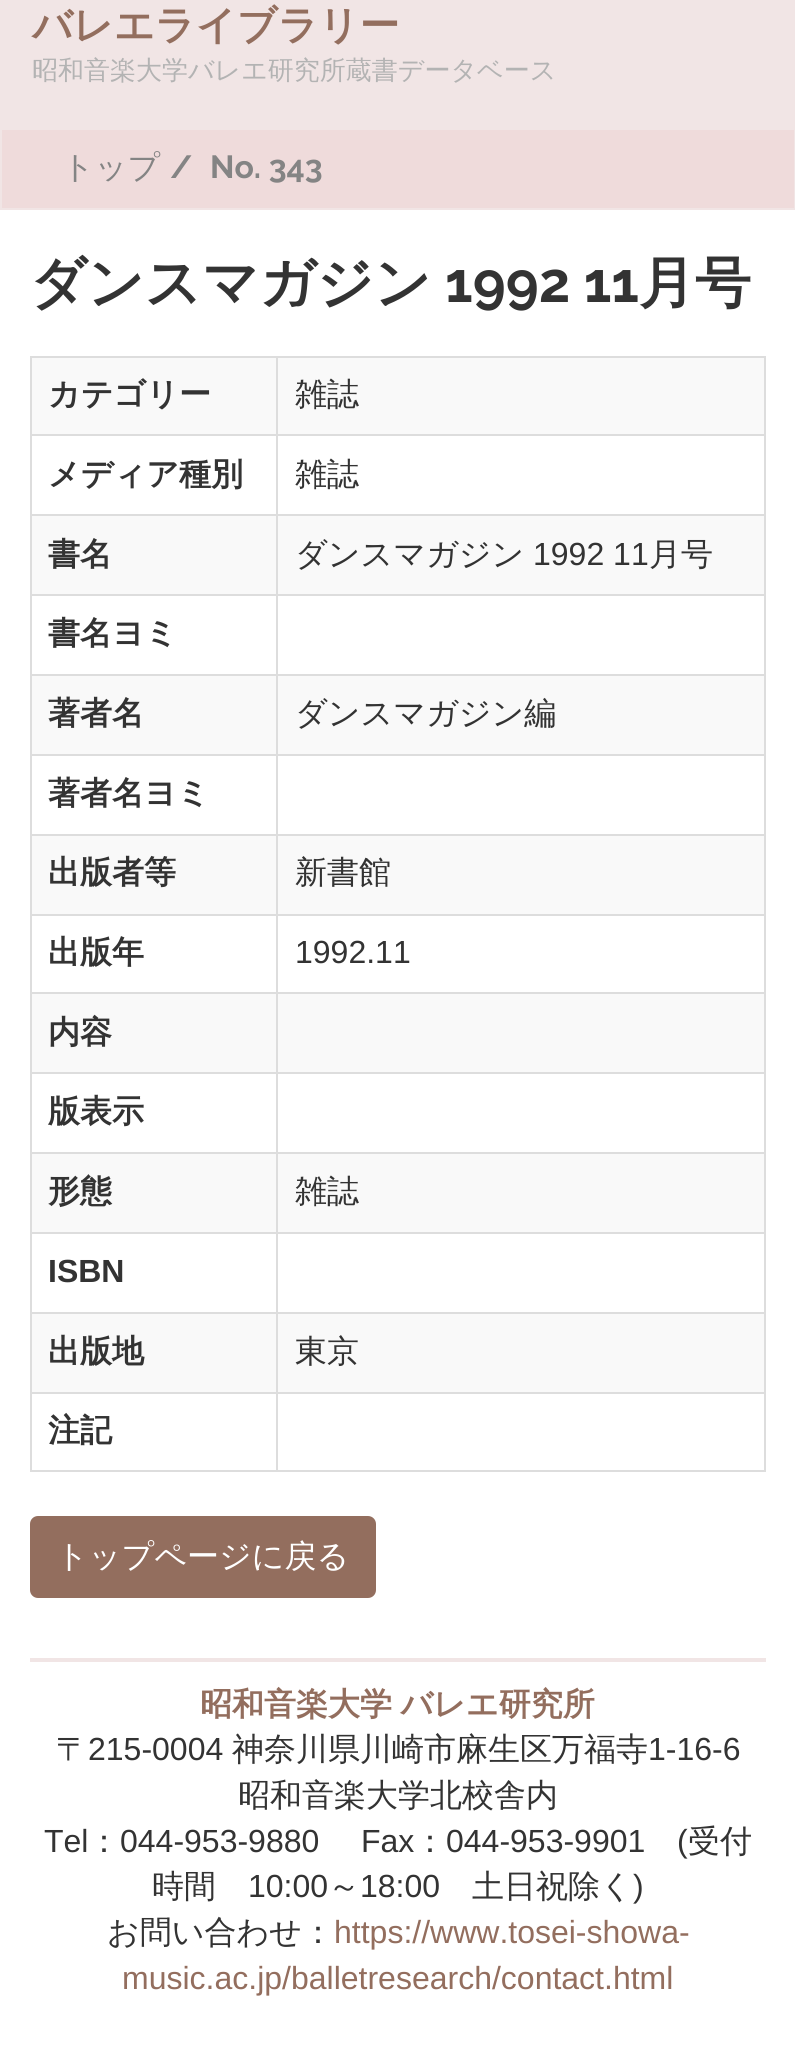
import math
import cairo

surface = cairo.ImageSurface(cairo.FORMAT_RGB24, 795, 2046)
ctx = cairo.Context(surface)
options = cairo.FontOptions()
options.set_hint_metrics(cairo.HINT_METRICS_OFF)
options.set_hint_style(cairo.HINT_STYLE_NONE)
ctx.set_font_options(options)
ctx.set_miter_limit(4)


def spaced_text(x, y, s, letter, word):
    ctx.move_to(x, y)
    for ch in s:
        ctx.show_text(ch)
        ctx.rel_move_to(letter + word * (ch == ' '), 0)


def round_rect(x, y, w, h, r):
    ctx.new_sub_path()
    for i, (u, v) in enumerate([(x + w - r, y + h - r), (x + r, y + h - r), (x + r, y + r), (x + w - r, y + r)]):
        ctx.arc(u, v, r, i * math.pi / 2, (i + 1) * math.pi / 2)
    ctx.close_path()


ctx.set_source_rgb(1, 1, 1)
ctx.paint()
ctx.set_source_rgb(0.945, 0.898, 0.898)
ctx.rectangle(0, 0, 795, 210)
ctx.fill()
ctx.select_font_face("WenQuanYi Zen Hei", cairo.FONT_SLANT_NORMAL, cairo.FONT_WEIGHT_BOLD)
ctx.set_font_size(40)
ctx.set_source_rgb(0.576, 0.431, 0.369)
ctx.move_to(32, 39)
ctx.show_text("バレエライブラリー")
ctx.select_font_face("WenQuanYi Zen Hei Medium")
ctx.set_font_size(26)
ctx.set_source_rgb(0.702, 0.702, 0.702)
ctx.move_to(32, 79)
ctx.show_text("昭和音楽大学バレエ研究所蔵書データベース")
ctx.set_source_rgb(0.937, 0.859, 0.859)
ctx.rectangle(2, 130, 792, 78)
ctx.fill()
ctx.set_font_size(32)
ctx.set_source_rgb(0.518, 0.518, 0.518)
ctx.move_to(62, 178)
ctx.show_text("トップ")
ctx.select_font_face("Raleway", cairo.FONT_SLANT_NORMAL, cairo.FONT_WEIGHT_BOLD)
ctx.move_to(170, 178)
ctx.show_text("/")
ctx.move_to(210, 178)
ctx.show_text("No. 343")
ctx.select_font_face("WenQuanYi Zen Hei", cairo.FONT_SLANT_NORMAL, cairo.FONT_WEIGHT_BOLD)
ctx.set_font_size(56)
ctx.set_source_rgb(0.2, 0.2, 0.2)
ctx.move_to(30, 302)
ctx.show_text("ダンスマガジン")
ctx.select_font_face("Raleway", cairo.FONT_SLANT_NORMAL, cairo.FONT_WEIGHT_BOLD)
ctx.move_to(445, 302)
ctx.show_text("1992 11")
ctx.select_font_face("WenQuanYi Zen Hei", cairo.FONT_SLANT_NORMAL, cairo.FONT_WEIGHT_BOLD)
ctx.move_to(639, 302)
ctx.show_text("月号")
ctx.set_source_rgb(0.867, 0.867, 0.867)
ctx.rectangle(30, 356, 736, 2)
ctx.fill()
ctx.rectangle(764, 356, 2, 1116)
ctx.fill()
ctx.rectangle(30, 1470, 736, 2)
ctx.fill()
ctx.rectangle(30, 356, 2, 1116)
ctx.fill()
ctx.set_source_rgb(0.976, 0.976, 0.976)
ctx.rectangle(32, 358, 732, 76)
ctx.fill()
ctx.set_font_size(32)
ctx.set_source_rgb(0.2, 0.2, 0.2)
ctx.move_to(48, 405)
ctx.show_text("カテゴリー")
ctx.set_source_rgb(0.867, 0.867, 0.867)
ctx.rectangle(276, 434, 490, 2)
ctx.fill()
ctx.rectangle(276, 514, 490, 2)
ctx.fill()
ctx.set_source_rgb(0.976, 0.976, 0.976)
ctx.rectangle(32, 516, 732, 78)
ctx.fill()
ctx.set_source_rgb(0.867, 0.867, 0.867)
ctx.rectangle(276, 594, 490, 2)
ctx.fill()
ctx.rectangle(276, 674, 490, 2)
ctx.fill()
ctx.set_source_rgb(0.976, 0.976, 0.976)
ctx.rectangle(32, 676, 732, 78)
ctx.fill()
ctx.set_source_rgb(0.867, 0.867, 0.867)
ctx.rectangle(276, 754, 490, 2)
ctx.fill()
ctx.rectangle(276, 834, 490, 2)
ctx.fill()
ctx.set_source_rgb(0.976, 0.976, 0.976)
ctx.rectangle(32, 836, 732, 78)
ctx.fill()
ctx.set_source_rgb(0.867, 0.867, 0.867)
ctx.rectangle(276, 914, 490, 2)
ctx.fill()
ctx.rectangle(276, 992, 490, 2)
ctx.fill()
ctx.set_source_rgb(0.976, 0.976, 0.976)
ctx.rectangle(32, 994, 732, 78)
ctx.fill()
ctx.set_source_rgb(0.867, 0.867, 0.867)
ctx.rectangle(276, 1072, 490, 2)
ctx.fill()
ctx.rectangle(276, 1152, 490, 2)
ctx.fill()
ctx.set_source_rgb(0.976, 0.976, 0.976)
ctx.rectangle(32, 1154, 732, 78)
ctx.fill()
ctx.set_source_rgb(0.867, 0.867, 0.867)
ctx.rectangle(276, 1232, 490, 2)
ctx.fill()
ctx.rectangle(276, 1312, 490, 2)
ctx.fill()
ctx.set_source_rgb(0.976, 0.976, 0.976)
ctx.rectangle(32, 1314, 732, 78)
ctx.fill()
ctx.set_source_rgb(0.867, 0.867, 0.867)
ctx.rectangle(276, 1392, 490, 2)
ctx.fill()
ctx.rectangle(276, 1392, 2, 80)
ctx.fill()
ctx.rectangle(30, 1392, 248, 2)
ctx.fill()
ctx.rectangle(276, 1312, 2, 82)
ctx.fill()
ctx.rectangle(30, 1312, 248, 2)
ctx.fill()
ctx.rectangle(276, 1232, 2, 82)
ctx.fill()
ctx.rectangle(30, 1232, 248, 2)
ctx.fill()
ctx.rectangle(276, 1152, 2, 82)
ctx.fill()
ctx.rectangle(30, 1152, 248, 2)
ctx.fill()
ctx.rectangle(276, 1072, 2, 82)
ctx.fill()
ctx.rectangle(30, 1072, 248, 2)
ctx.fill()
ctx.rectangle(276, 992, 2, 82)
ctx.fill()
ctx.rectangle(30, 992, 248, 2)
ctx.fill()
ctx.rectangle(276, 914, 2, 80)
ctx.fill()
ctx.rectangle(30, 914, 248, 2)
ctx.fill()
ctx.rectangle(276, 834, 2, 82)
ctx.fill()
ctx.rectangle(30, 834, 248, 2)
ctx.fill()
ctx.rectangle(276, 754, 2, 82)
ctx.fill()
ctx.rectangle(30, 754, 248, 2)
ctx.fill()
ctx.rectangle(276, 674, 2, 82)
ctx.fill()
ctx.rectangle(30, 674, 248, 2)
ctx.fill()
ctx.rectangle(276, 594, 2, 82)
ctx.fill()
ctx.rectangle(30, 594, 248, 2)
ctx.fill()
ctx.rectangle(276, 514, 2, 82)
ctx.fill()
ctx.rectangle(30, 514, 248, 2)
ctx.fill()
ctx.rectangle(276, 434, 2, 82)
ctx.fill()
ctx.rectangle(30, 434, 248, 2)
ctx.fill()
ctx.rectangle(276, 356, 2, 80)
ctx.fill()
ctx.select_font_face("WenQuanYi Zen Hei Medium")
ctx.set_source_rgb(0.2, 0.2, 0.2)
ctx.move_to(295, 405)
ctx.show_text("雑誌")
ctx.select_font_face("WenQuanYi Zen Hei", cairo.FONT_SLANT_NORMAL, cairo.FONT_WEIGHT_BOLD)
ctx.move_to(48, 485)
ctx.show_text("メディア種別")
ctx.select_font_face("WenQuanYi Zen Hei Medium")
ctx.move_to(295, 485)
ctx.show_text("雑誌")
ctx.select_font_face("WenQuanYi Zen Hei", cairo.FONT_SLANT_NORMAL, cairo.FONT_WEIGHT_BOLD)
ctx.move_to(48, 565)
ctx.show_text("書名")
ctx.select_font_face("WenQuanYi Zen Hei Medium")
ctx.move_to(295, 565)
ctx.show_text("ダンスマガジン")
ctx.select_font_face("Liberation Sans")
ctx.move_to(533, 565)
ctx.show_text("1992 11")
ctx.select_font_face("WenQuanYi Zen Hei Medium")
ctx.move_to(649, 565)
ctx.show_text("月号")
ctx.select_font_face("WenQuanYi Zen Hei", cairo.FONT_SLANT_NORMAL, cairo.FONT_WEIGHT_BOLD)
ctx.move_to(48, 644)
ctx.show_text("書名ヨミ")
ctx.move_to(48, 724)
ctx.show_text("著者名")
ctx.select_font_face("WenQuanYi Zen Hei Medium")
ctx.move_to(295, 724)
ctx.show_text("ダンスマガジン編")
ctx.select_font_face("WenQuanYi Zen Hei", cairo.FONT_SLANT_NORMAL, cairo.FONT_WEIGHT_BOLD)
ctx.move_to(48, 804)
ctx.show_text("著者名ヨミ")
ctx.move_to(48, 883)
ctx.show_text("出版者等")
ctx.select_font_face("WenQuanYi Zen Hei Medium")
ctx.move_to(295, 883)
ctx.show_text("新書館")
ctx.select_font_face("WenQuanYi Zen Hei", cairo.FONT_SLANT_NORMAL, cairo.FONT_WEIGHT_BOLD)
ctx.move_to(48, 963)
ctx.show_text("出版年")
ctx.select_font_face("Liberation Sans")
ctx.move_to(295, 963)
ctx.show_text("1992.11")
ctx.select_font_face("WenQuanYi Zen Hei", cairo.FONT_SLANT_NORMAL, cairo.FONT_WEIGHT_BOLD)
ctx.move_to(48, 1043)
ctx.show_text("内容")
ctx.move_to(48, 1122)
ctx.show_text("版表示")
ctx.move_to(48, 1202)
ctx.show_text("形態")
ctx.select_font_face("WenQuanYi Zen Hei Medium")
ctx.move_to(295, 1202)
ctx.show_text("雑誌")
ctx.select_font_face("Liberation Sans", cairo.FONT_SLANT_NORMAL, cairo.FONT_WEIGHT_BOLD)
ctx.move_to(48, 1282)
ctx.show_text("ISBN")
ctx.select_font_face("WenQuanYi Zen Hei", cairo.FONT_SLANT_NORMAL, cairo.FONT_WEIGHT_BOLD)
ctx.move_to(48, 1362)
ctx.show_text("出版地")
ctx.select_font_face("WenQuanYi Zen Hei Medium")
ctx.move_to(295, 1362)
ctx.show_text("東京")
ctx.select_font_face("WenQuanYi Zen Hei", cairo.FONT_SLANT_NORMAL, cairo.FONT_WEIGHT_BOLD)
ctx.move_to(48, 1441)
ctx.show_text("注記")
ctx.set_source_rgb(0.576, 0.431, 0.369)
round_rect(31, 1517, 344, 80, 7)
ctx.fill_preserve()
ctx.stroke()
ctx.select_font_face("WenQuanYi Zen Hei Medium")
ctx.set_source_rgb(1, 1, 1)
ctx.move_to(56, 1567)
ctx.show_text("トップページに戻る")
ctx.set_source_rgb(0.945, 0.898, 0.898)
ctx.rectangle(30, 1658, 736, 4)
ctx.fill()
ctx.select_font_face("WenQuanYi Zen Hei", cairo.FONT_SLANT_NORMAL, cairo.FONT_WEIGHT_BOLD)
ctx.set_source_rgb(0.576, 0.431, 0.369)
spaced_text(200, 1715, "昭和音楽大学 バレエ研究所", 0, -1)
ctx.select_font_face("WenQuanYi Zen Hei Medium")
ctx.set_source_rgb(0.2, 0.2, 0.2)
ctx.move_to(56, 1760)
ctx.show_text("〒")
ctx.select_font_face("Liberation Sans")
ctx.move_to(88, 1760)
ctx.show_text("215-0004")
ctx.select_font_face("WenQuanYi Zen Hei Medium")
ctx.move_to(232, 1760)
ctx.show_text("神奈川県川崎市麻生区万福寺")
ctx.select_font_face("Liberation Sans")
ctx.move_to(648, 1760)
ctx.show_text("1-16-6")
ctx.select_font_face("WenQuanYi Zen Hei Medium")
ctx.move_to(238, 1806)
ctx.show_text("昭和音楽大学北校舎内")
ctx.select_font_face("Liberation Sans")
ctx.move_to(44, 1852)
ctx.show_text("Tel")
ctx.select_font_face("WenQuanYi Zen Hei Medium")
ctx.move_to(88, 1852)
ctx.show_text("：")
ctx.select_font_face("Liberation Sans")
ctx.move_to(120, 1852)
ctx.show_text("044-953-9880")
ctx.move_to(361, 1852)
ctx.show_text("Fax")
ctx.select_font_face("WenQuanYi Zen Hei Medium")
ctx.move_to(414, 1852)
ctx.show_text("：")
ctx.select_font_face("Liberation Sans")
ctx.move_to(446, 1852)
ctx.show_text("044-953-9901")
ctx.move_to(677, 1852)
ctx.show_text("(")
ctx.select_font_face("WenQuanYi Zen Hei Medium")
ctx.move_to(688, 1852)
ctx.show_text("受付")
ctx.move_to(152, 1897)
ctx.show_text("時間")
ctx.select_font_face("Liberation Sans")
ctx.move_to(248, 1897)
ctx.show_text("10:00")
ctx.select_font_face("WenQuanYi Zen Hei Medium")
ctx.move_to(328, 1897)
ctx.show_text("～")
ctx.select_font_face("Liberation Sans")
ctx.move_to(360, 1897)
ctx.show_text("18:00")
ctx.select_font_face("WenQuanYi Zen Hei Medium")
ctx.move_to(472, 1897)
ctx.show_text("土日祝除く")
ctx.select_font_face("Liberation Sans")
ctx.move_to(633, 1897)
ctx.show_text(")")
ctx.select_font_face("WenQuanYi Zen Hei Medium")
ctx.move_to(107, 1943)
ctx.show_text("お問い合わせ：")
ctx.select_font_face("Liberation Sans")
ctx.set_source_rgb(0.576, 0.431, 0.369)
ctx.move_to(334, 1943)
ctx.show_text("https://www.tosei-showa-")
ctx.move_to(122, 1989)
ctx.show_text("music.ac.jp/balletresearch/contact.html")
surface.write_to_png("page.png")
